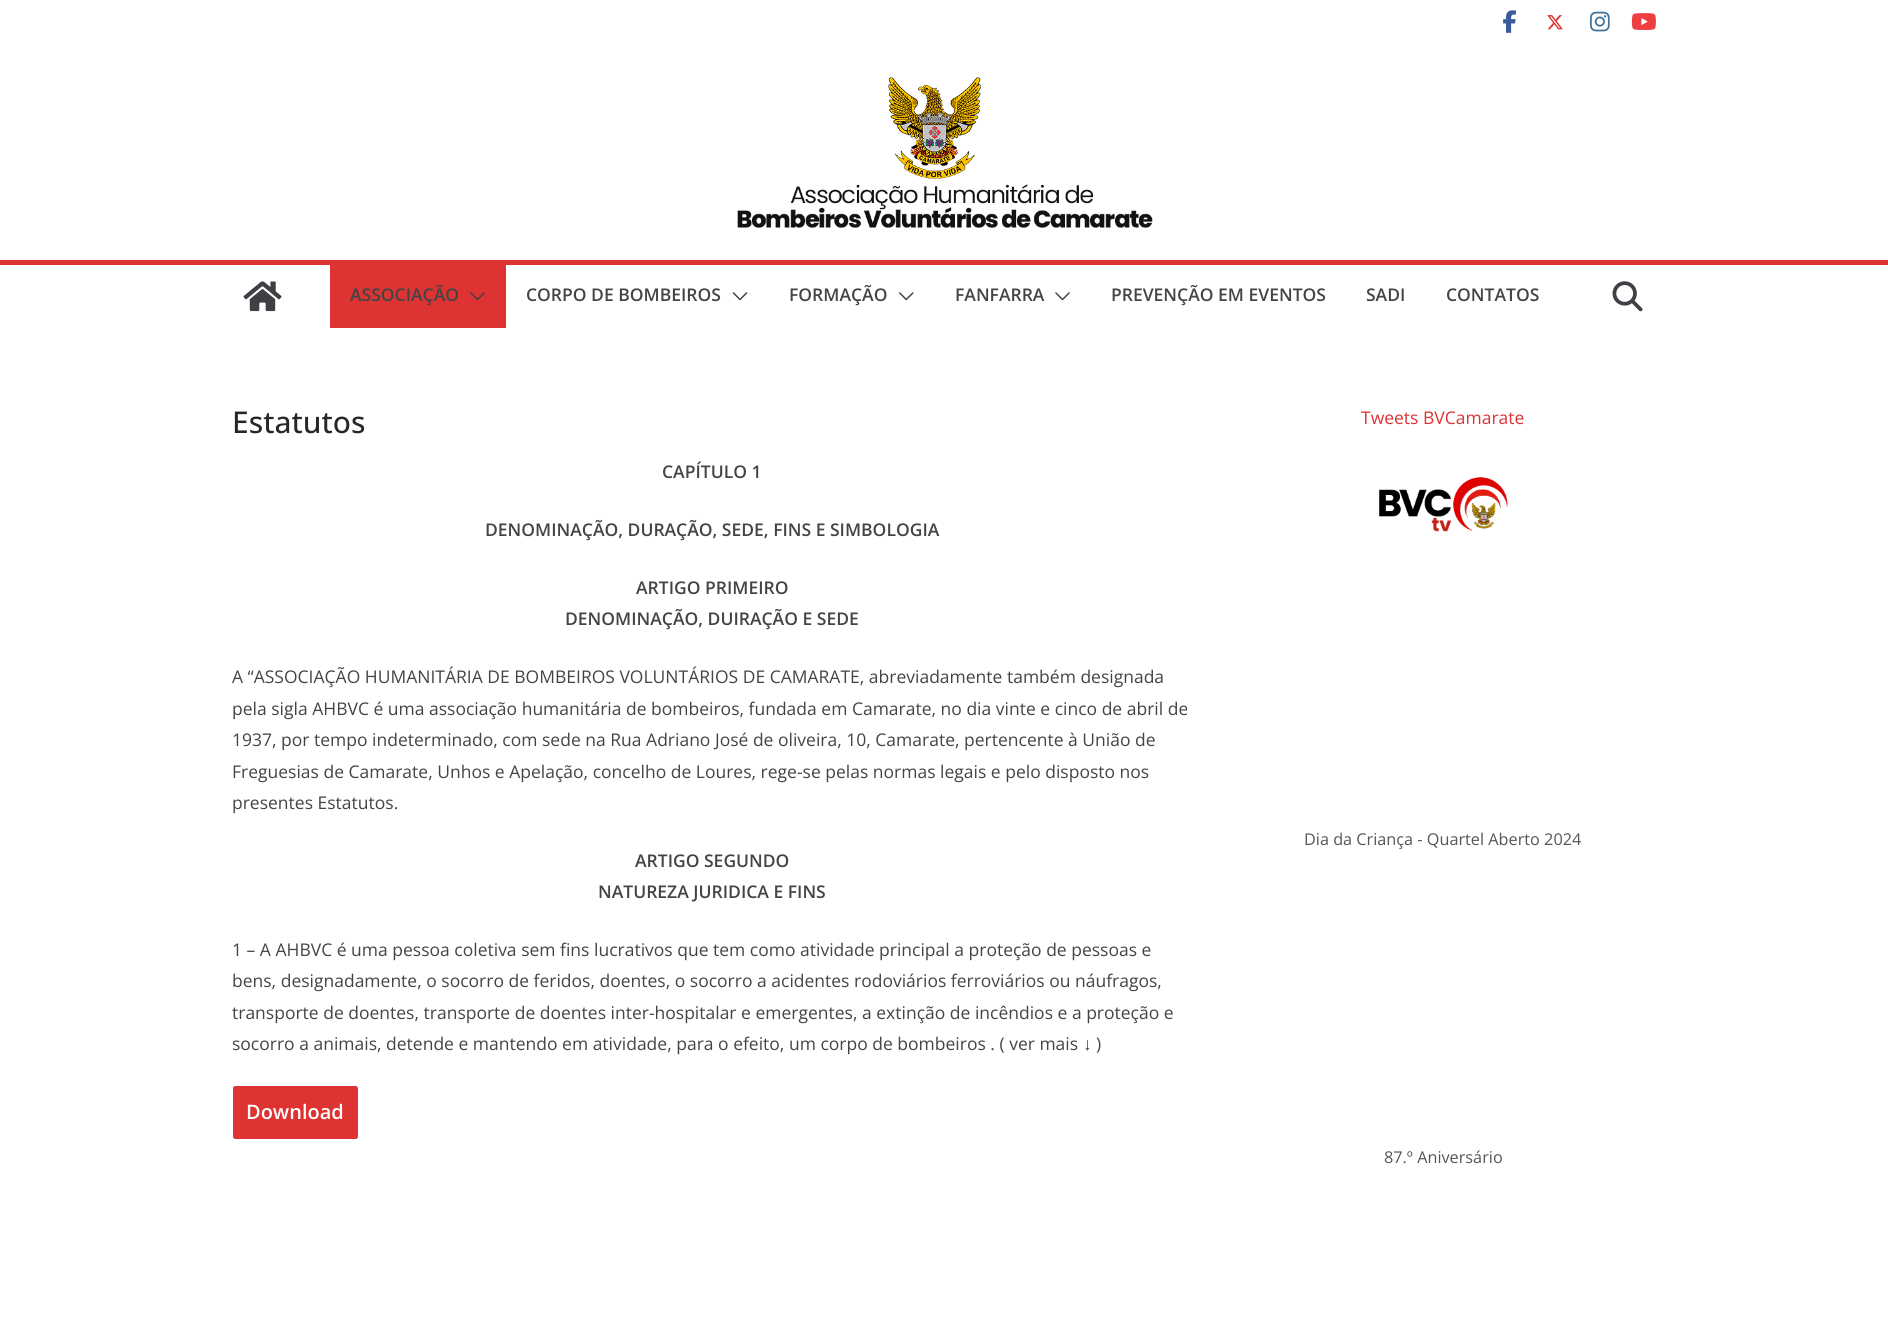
import math
import cairo

surface = cairo.ImageSurface(cairo.FORMAT_RGB24, 1888, 1321)
ctx = cairo.Context(surface)
options = cairo.FontOptions()
options.set_hint_metrics(cairo.HINT_METRICS_OFF)
options.set_hint_style(cairo.HINT_STYLE_NONE)
ctx.set_font_options(options)
ctx.set_miter_limit(4)


def round_rect(x, y, w, h, r):
    ctx.new_sub_path()
    for i, (u, v) in enumerate([(x + w - r, y + h - r), (x + r, y + h - r), (x + r, y + r), (x + w - r, y + r)]):
        ctx.arc(u, v, r, i * math.pi / 2, (i + 1) * math.pi / 2)
    ctx.close_path()


def picture(path, x, y, w, h):
    ctx.save()
    ctx.set_source_surface(cairo.ImageSurface.create_from_png(path), x, y)
    ctx.rectangle(x, y, w, h)
    ctx.fill()
    ctx.restore()


ctx.set_source_rgb(1, 1, 1)
ctx.paint()
picture("img1.png", 1503, 10, 13, 23)
picture("img2.png", 1547, 15, 16, 15)
picture("img3.png", 1590, 11, 20, 21)
picture("img4.png", 1631, 13, 25, 17)
picture("img5.png", 737, 77, 416, 151)
ctx.set_source_rgb(0.867, 0.2, 0.2)
ctx.rectangle(0, 260, 1888, 5)
ctx.fill()
picture("img6.png", 243, 281, 39, 31)
ctx.rectangle(330, 265, 176, 63)
ctx.fill()
ctx.select_font_face("Open Sans SemiBold")
ctx.set_font_size(17.5)
ctx.set_source_rgb(0.267, 0.267, 0.267)
ctx.move_to(350, 301)
ctx.show_text("ASSOCIAÇÃO")
picture("img7.png", 470, 292, 15, 9)
ctx.move_to(526, 301)
ctx.show_text("CORPO DE BOMBEIROS")
picture("img8.png", 732, 292, 16, 9)
ctx.move_to(789, 301)
ctx.show_text("FORMAÇÃO")
picture("img9.png", 899, 292, 15, 9)
ctx.move_to(955, 301)
ctx.show_text("FANFARRA")
picture("img10.png", 1055, 292, 15, 9)
ctx.move_to(1111, 301)
ctx.show_text("PREVENÇÃO EM EVENTOS")
ctx.move_to(1366, 301)
ctx.show_text("SADI")
ctx.move_to(1446, 301)
ctx.show_text("CONTATOS")
picture("img11.png", 1612, 281, 31, 31)
ctx.select_font_face("Open Sans Medium")
ctx.set_font_size(30)
ctx.set_source_rgb(0.153, 0.153, 0.165)
ctx.move_to(232, 433)
ctx.show_text("Estatutos")
ctx.select_font_face("Open Sans SemiBold")
ctx.set_font_size(17.5)
ctx.set_source_rgb(0.267, 0.267, 0.267)
ctx.move_to(662, 478)
ctx.show_text("CAPÍTULO 1")
ctx.move_to(485, 536)
ctx.show_text("DENOMINAÇÃO, DURAÇÃO, SEDE, FINS E SIMBOLOGIA")
ctx.move_to(636, 594)
ctx.show_text("ARTIGO PRIMEIRO")
ctx.move_to(565, 625)
ctx.show_text("DENOMINAÇÃO, DUIRAÇÃO E SEDE")
ctx.select_font_face("Open Sans")
ctx.move_to(232, 683)
ctx.show_text("A “ASSOCIAÇÃO HUMANITÁRIA DE BOMBEIROS VOLUNTÁRIOS DE CAMARATE, abreviadamente também designada")
ctx.move_to(232, 715)
ctx.show_text("pela sigla AHBVC é uma associação humanitária de bombeiros, fundada em Camarate, no dia vinte e cinco de abril de")
ctx.move_to(232, 746)
ctx.show_text("1937, por tempo indeterminado, com sede na Rua Adriano José de oliveira, 10, Camarate, pertencente à União de")
ctx.move_to(232, 778)
ctx.show_text("Freguesias de Camarate, Unhos e Apelação, concelho de Loures, rege-se pelas normas legais e pelo disposto nos")
ctx.move_to(232, 809)
ctx.show_text("presentes Estatutos.")
ctx.select_font_face("Open Sans SemiBold")
ctx.move_to(635, 867)
ctx.show_text("ARTIGO SEGUNDO")
ctx.move_to(598, 898)
ctx.show_text("NATUREZA JURIDICA E FINS")
ctx.select_font_face("Open Sans")
ctx.move_to(232, 956)
ctx.show_text("1 – A AHBVC é uma pessoa coletiva sem fins lucrativos que tem como atividade principal a proteção de pessoas e")
ctx.move_to(232, 987)
ctx.show_text("bens, designadamente, o socorro de feridos, doentes, o socorro a acidentes rodoviários ferroviários ou náufragos,")
ctx.move_to(232, 1019)
ctx.show_text("transporte de doentes, transporte de doentes inter-hospitalar e emergentes, a extinção de incêndios e a proteção e")
ctx.move_to(232, 1050)
ctx.show_text("socorro a animais, detende e mantendo em atividade, para o efeito, um corpo de bombeiros . ( ver mais")
ctx.select_font_face("Liberation Serif")
ctx.move_to(1083, 1050)
ctx.show_text("↓")
ctx.select_font_face("Open Sans")
ctx.move_to(1096, 1050)
ctx.show_text(")")
ctx.set_source_rgb(0.867, 0.2, 0.2)
round_rect(233.5, 1086.5, 124, 52, 2)
ctx.fill_preserve()
ctx.set_line_width(1)
ctx.stroke()
ctx.select_font_face("Open Sans SemiBold")
ctx.set_font_size(20)
ctx.set_source_rgb(1, 1, 1)
ctx.move_to(246, 1119)
ctx.show_text("Download")
ctx.select_font_face("Open Sans")
ctx.set_font_size(17.5)
ctx.set_source_rgb(0.867, 0.2, 0.2)
ctx.move_to(1361, 424)
ctx.show_text("Tweets BVCamarate")
picture("img12.png", 1379, 477, 129, 55)
ctx.set_font_size(16.25)
ctx.set_source_rgb(0.333, 0.333, 0.333)
ctx.move_to(1304, 845)
ctx.show_text("Dia da Criança - Quartel Aberto 2024")
ctx.move_to(1384, 1163)
ctx.show_text("87.º Aniversário")
surface.write_to_png("page.png")
